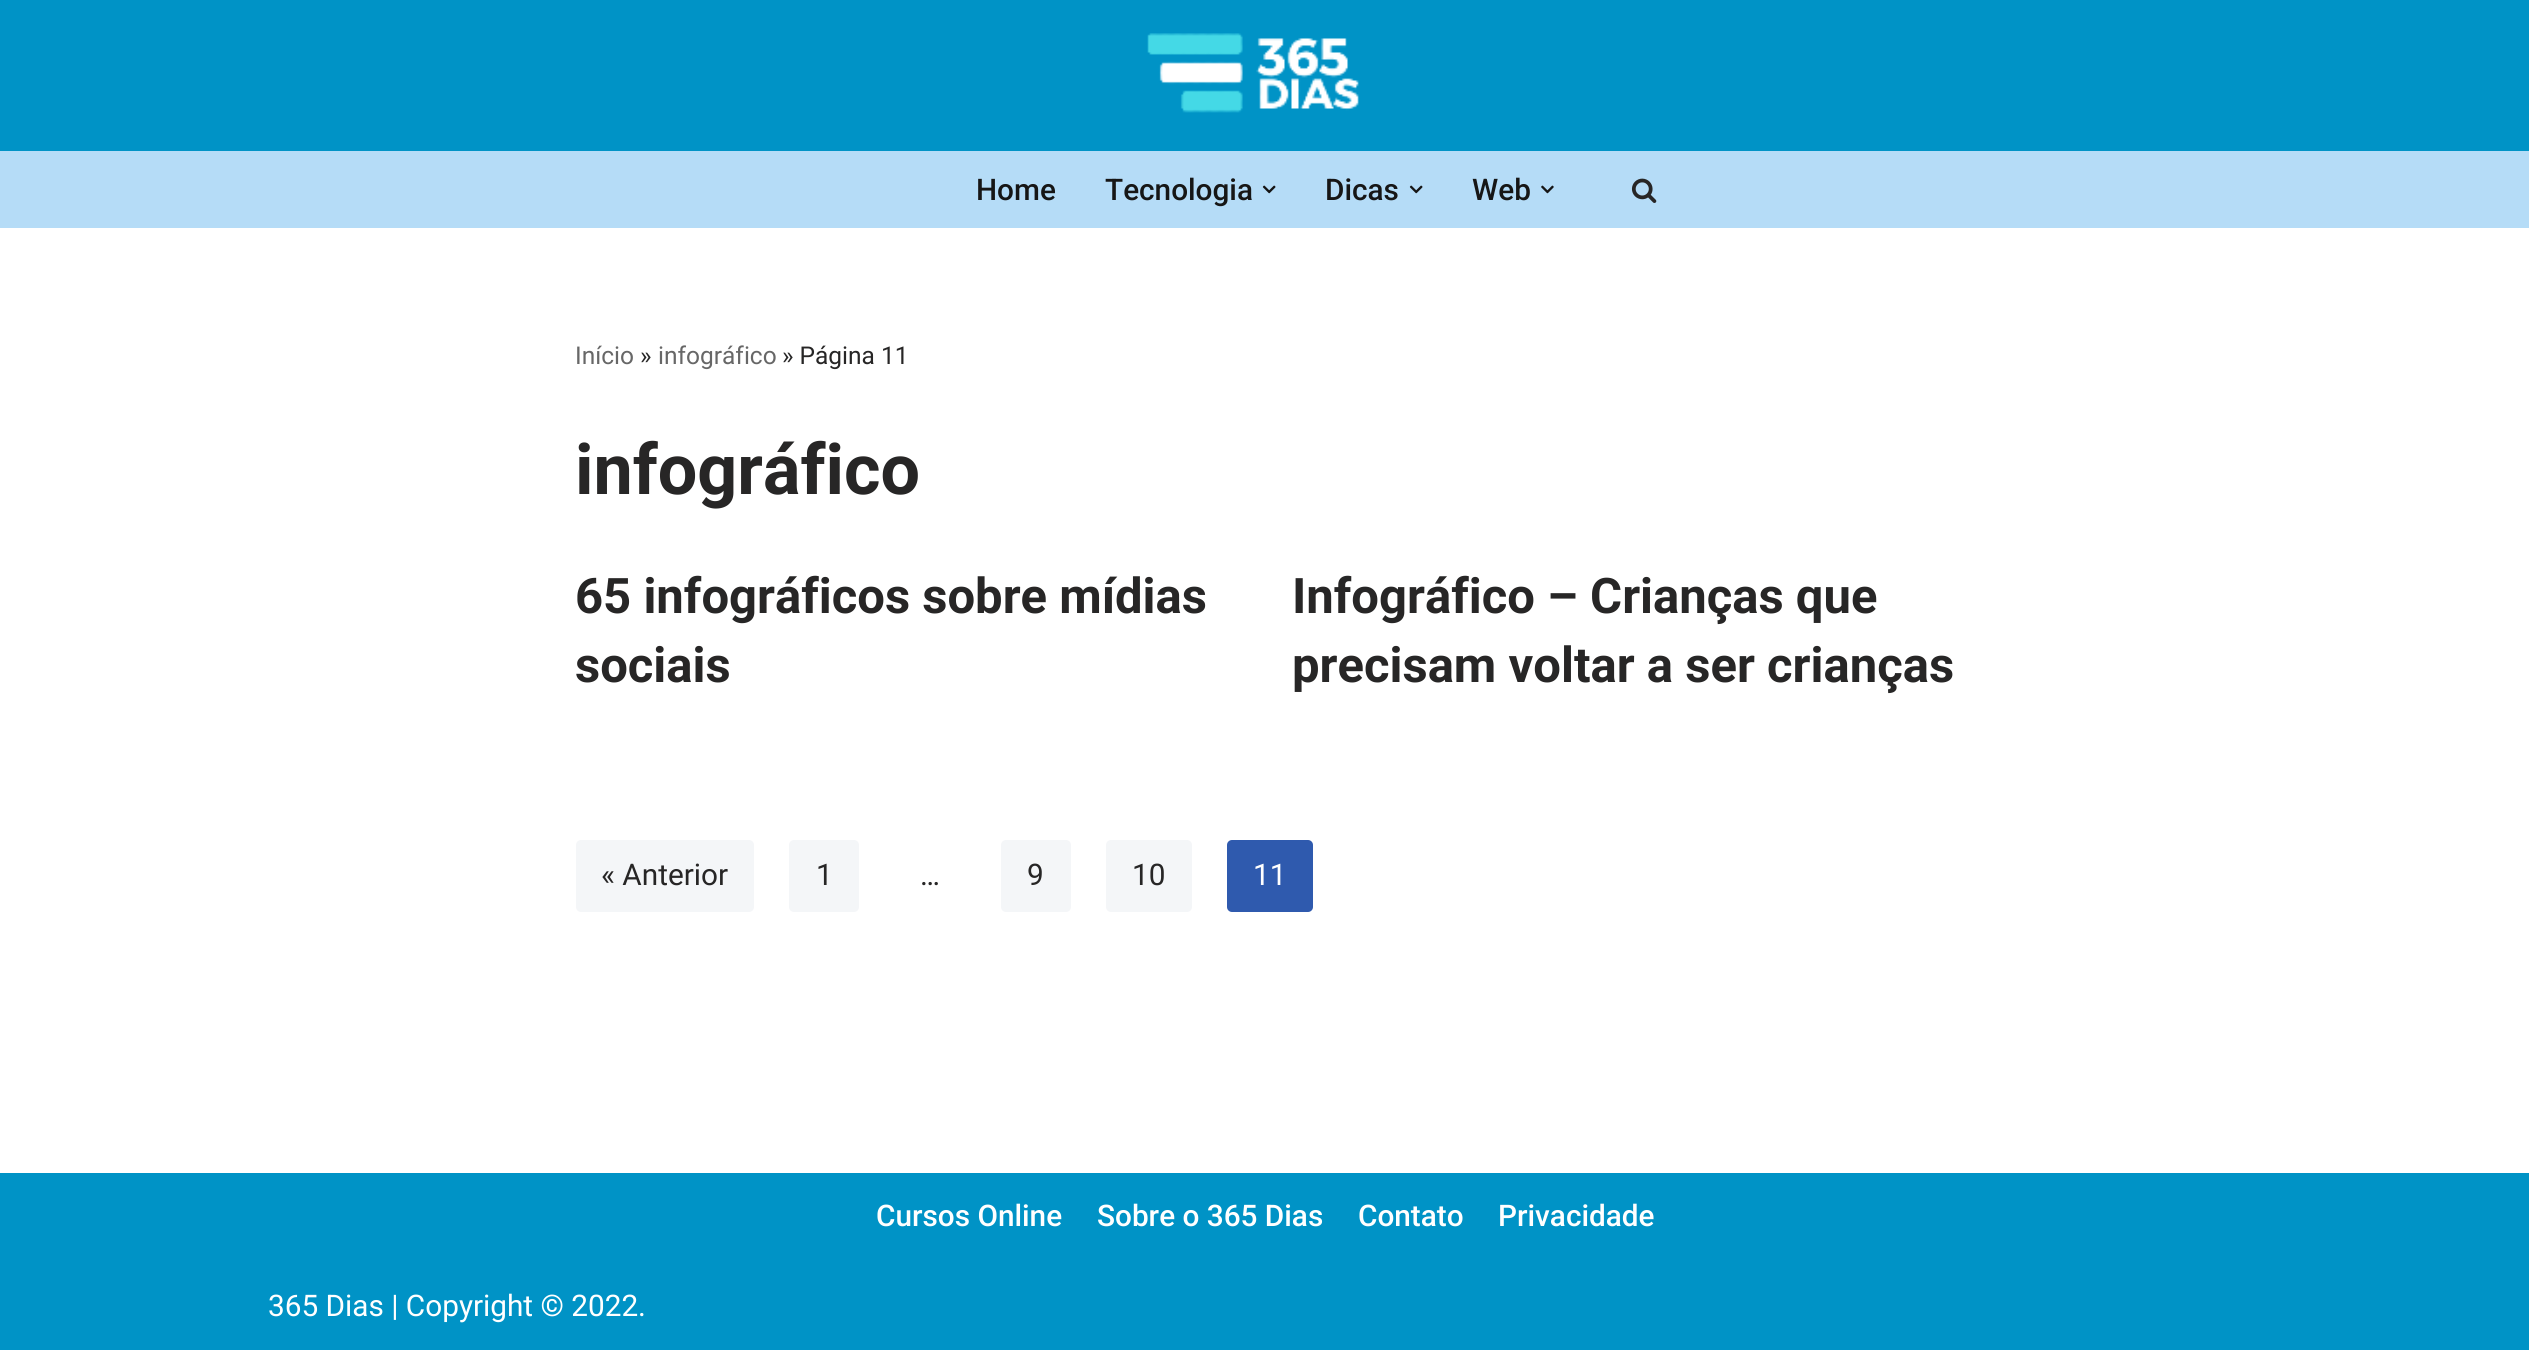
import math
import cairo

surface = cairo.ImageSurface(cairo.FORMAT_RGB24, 2529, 1350)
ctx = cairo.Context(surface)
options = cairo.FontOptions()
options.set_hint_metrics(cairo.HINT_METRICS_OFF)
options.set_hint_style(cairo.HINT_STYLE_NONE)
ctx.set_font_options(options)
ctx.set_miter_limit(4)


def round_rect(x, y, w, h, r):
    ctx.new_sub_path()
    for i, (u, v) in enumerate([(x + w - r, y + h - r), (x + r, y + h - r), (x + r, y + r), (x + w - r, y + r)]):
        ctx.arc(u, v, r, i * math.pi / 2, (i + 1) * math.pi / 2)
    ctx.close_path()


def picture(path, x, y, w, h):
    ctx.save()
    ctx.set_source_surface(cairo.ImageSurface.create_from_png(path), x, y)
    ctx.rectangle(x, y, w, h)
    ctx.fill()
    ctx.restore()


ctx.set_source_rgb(1, 1, 1)
ctx.paint()
ctx.set_source_rgb(0, 0.576, 0.776)
ctx.rectangle(0, 0, 2529, 151)
ctx.fill()
picture("img1.png", 1147, 33, 212, 80)
ctx.set_source_rgb(0.71, 0.863, 0.965)
ctx.rectangle(0, 151, 2529, 77)
ctx.fill()
ctx.select_font_face("Roboto Medium")
ctx.set_font_size(29.75)
ctx.set_source_rgb(0.086, 0.086, 0.086)
ctx.move_to(976, 200)
ctx.show_text("Home")
ctx.move_to(1105, 200)
ctx.show_text("Tecnologia")
picture("img2.png", 1262, 185, 14, 9)
ctx.move_to(1325, 200)
ctx.show_text("Dicas")
picture("img3.png", 1409, 185, 14, 9)
ctx.move_to(1472, 200)
ctx.show_text("Web")
picture("img4.png", 1541, 185, 13, 9)
picture("img5.png", 1631, 178, 26, 25)
ctx.select_font_face("Roboto")
ctx.set_font_size(24.5)
ctx.set_source_rgb(0.404, 0.404, 0.404)
ctx.move_to(575, 364)
ctx.show_text("Início")
ctx.set_source_rgb(0.153, 0.149, 0.149)
ctx.move_to(640, 364)
ctx.show_text("»")
ctx.set_source_rgb(0.404, 0.404, 0.404)
ctx.move_to(658, 364)
ctx.show_text("infográfico")
ctx.set_source_rgb(0.153, 0.149, 0.149)
ctx.move_to(782, 364)
ctx.show_text("» Página 11")
ctx.select_font_face("Roboto", cairo.FONT_SLANT_NORMAL, cairo.FONT_WEIGHT_BOLD)
ctx.set_font_size(70)
ctx.move_to(575, 494)
ctx.show_text("infográfico")
ctx.set_font_size(49)
ctx.move_to(575, 613)
ctx.show_text("65 infográficos sobre mídias")
ctx.move_to(575, 682)
ctx.show_text("sociais")
ctx.move_to(1292, 613)
ctx.show_text("Infográfico – Crianças que")
ctx.move_to(1292, 682)
ctx.show_text("precisam voltar a ser crianças")
ctx.set_source_rgb(0.957, 0.961, 0.969)
round_rect(576, 840, 178, 72, 5)
ctx.fill()
ctx.select_font_face("Roboto")
ctx.set_font_size(29.75)
ctx.set_source_rgb(0.153, 0.149, 0.149)
ctx.move_to(601, 885)
ctx.show_text("« Anterior")
ctx.set_source_rgb(0.957, 0.961, 0.969)
round_rect(789, 840, 70, 72, 5)
ctx.fill()
ctx.set_source_rgb(0.153, 0.149, 0.149)
ctx.move_to(816, 885)
ctx.show_text("1")
ctx.move_to(920, 885)
ctx.show_text("…")
ctx.set_source_rgb(0.957, 0.961, 0.969)
round_rect(1001, 840, 70, 72, 5)
ctx.fill()
ctx.set_source_rgb(0.153, 0.149, 0.149)
ctx.move_to(1027, 885)
ctx.show_text("9")
ctx.set_source_rgb(0.957, 0.961, 0.969)
round_rect(1106, 840, 86, 72, 5)
ctx.fill()
ctx.set_source_rgb(0.153, 0.149, 0.149)
ctx.move_to(1132, 885)
ctx.show_text("10")
ctx.set_source_rgb(0.184, 0.353, 0.682)
round_rect(1227, 840, 86, 72, 5)
ctx.fill()
ctx.set_source_rgb(1, 1, 1)
ctx.move_to(1253, 885)
ctx.show_text("11")
ctx.set_source_rgb(0, 0.576, 0.776)
ctx.rectangle(0, 1173, 2529, 177)
ctx.fill()
ctx.select_font_face("Roboto Medium")
ctx.set_source_rgb(1, 1, 1)
ctx.move_to(876, 1226)
ctx.show_text("Cursos Online")
ctx.move_to(1097, 1226)
ctx.show_text("Sobre o 365 Dias")
ctx.move_to(1358, 1226)
ctx.show_text("Contato")
ctx.move_to(1498, 1226)
ctx.show_text("Privacidade")
ctx.select_font_face("Roboto")
ctx.move_to(268, 1316)
ctx.show_text("365 Dias | Copyright © 2022.")
surface.write_to_png("page.png")
